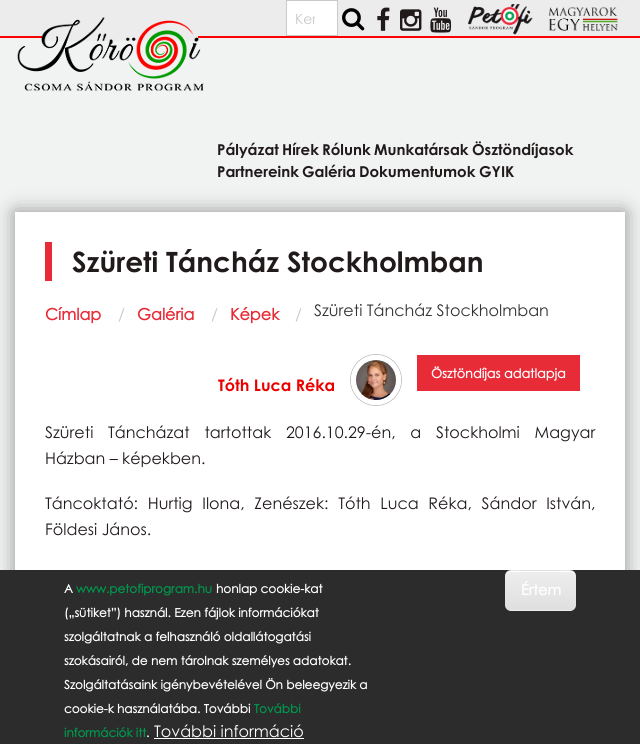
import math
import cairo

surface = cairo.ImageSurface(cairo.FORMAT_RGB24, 640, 744)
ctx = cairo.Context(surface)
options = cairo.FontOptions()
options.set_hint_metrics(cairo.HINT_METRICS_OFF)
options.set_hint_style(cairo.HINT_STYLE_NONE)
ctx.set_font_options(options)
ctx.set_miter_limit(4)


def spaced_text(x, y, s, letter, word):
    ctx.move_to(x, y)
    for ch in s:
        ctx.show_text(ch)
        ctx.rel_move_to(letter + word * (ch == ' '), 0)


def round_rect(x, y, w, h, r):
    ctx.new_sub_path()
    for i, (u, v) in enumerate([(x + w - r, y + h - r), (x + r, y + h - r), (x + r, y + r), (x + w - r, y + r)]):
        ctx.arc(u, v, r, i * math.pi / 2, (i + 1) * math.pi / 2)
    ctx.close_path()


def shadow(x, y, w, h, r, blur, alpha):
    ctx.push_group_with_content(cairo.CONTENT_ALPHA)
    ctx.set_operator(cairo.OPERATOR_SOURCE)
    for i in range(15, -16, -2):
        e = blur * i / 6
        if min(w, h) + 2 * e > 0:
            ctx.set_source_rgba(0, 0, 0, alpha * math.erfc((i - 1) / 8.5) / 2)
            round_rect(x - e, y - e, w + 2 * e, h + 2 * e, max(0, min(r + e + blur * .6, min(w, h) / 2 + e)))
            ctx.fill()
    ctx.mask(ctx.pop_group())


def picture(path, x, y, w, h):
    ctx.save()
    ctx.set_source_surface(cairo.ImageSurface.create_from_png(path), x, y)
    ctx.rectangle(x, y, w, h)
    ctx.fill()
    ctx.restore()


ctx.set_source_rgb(0.945, 0.949, 0.949)
ctx.paint()
ctx.set_source_rgb(0.922, 0.922, 0.922)
ctx.rectangle(0, 0, 640, 36)
ctx.fill()
ctx.set_source_rgb(1, 0, 0)
ctx.rectangle(0, 36, 640, 2)
ctx.fill()
ctx.set_source_rgb(0.922, 0.922, 0.922)
ctx.rectangle(42, 36, 156, 5)
ctx.fill()
picture("img1.png", 17, 17, 187, 74)
ctx.set_source_rgb(1, 1, 1)
ctx.rectangle(286.5, 0.5, 51, 35)
ctx.fill_preserve()
ctx.set_source_rgb(0.792, 0.792, 0.792)
ctx.set_line_width(1)
ctx.stroke()
ctx.save()
ctx.rectangle(295, 10, 20, 17)
ctx.clip()
ctx.select_font_face("Century Gothic")
ctx.set_font_size(14)
ctx.move_to(295, 24)
ctx.show_text("Ker")
ctx.restore()
picture("img2.png", 342, 8, 23, 23)
picture("img3.png", 377, 7, 13, 24)
picture("img4.png", 400, 9, 22, 22)
picture("img5.png", 430, 7, 22, 26)
picture("img6.png", 467, 4, 66, 31)
picture("img7.png", 548, 7, 70, 24)
ctx.select_font_face("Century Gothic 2", cairo.FONT_SLANT_NORMAL, cairo.FONT_WEIGHT_BOLD)
ctx.set_font_size(15)
ctx.set_source_rgb(0.125, 0.102, 0.106)
ctx.move_to(217, 155)
ctx.show_text("Pályázat")
ctx.move_to(282, 155)
ctx.show_text("Hírek")
ctx.move_to(322, 155)
ctx.show_text("Rólunk")
ctx.move_to(374, 155)
ctx.show_text("Munkatársak")
ctx.move_to(472, 155)
ctx.show_text("Ösztöndíjasok")
ctx.move_to(217, 177)
ctx.show_text("Partnereink")
ctx.move_to(302, 177)
ctx.show_text("Galéria")
ctx.move_to(359, 177)
ctx.show_text("Dokumentumok")
ctx.move_to(479, 177)
ctx.show_text("GYIK")
ctx.set_source_rgb(0.196, 0.196, 0.196)
shadow(15, 212, 610, 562, 0, 10, 0.5)
ctx.set_source_rgb(1, 1, 1)
ctx.rectangle(15, 212, 610, 358)
ctx.fill()
ctx.set_source_rgb(0.906, 0.173, 0.216)
ctx.rectangle(45, 242, 7, 39)
ctx.fill()
ctx.set_font_size(28)
ctx.set_source_rgb(0.125, 0.102, 0.106)
ctx.move_to(72, 272)
ctx.show_text("Szüreti Táncház Stockholmban")
ctx.select_font_face("Century Gothic", cairo.FONT_SLANT_NORMAL, cairo.FONT_WEIGHT_BOLD)
ctx.set_font_size(16)
ctx.set_source_rgb(0.906, 0.173, 0.216)
ctx.move_to(45, 320)
ctx.show_text("Címlap")
ctx.select_font_face("Century Gothic")
ctx.set_source_rgb(0.792, 0.792, 0.792)
ctx.move_to(118, 320)
ctx.show_text("/")
ctx.select_font_face("Century Gothic", cairo.FONT_SLANT_NORMAL, cairo.FONT_WEIGHT_BOLD)
ctx.set_source_rgb(0.906, 0.173, 0.216)
ctx.move_to(137, 320)
ctx.show_text("Galéria")
ctx.select_font_face("Century Gothic")
ctx.set_source_rgb(0.792, 0.792, 0.792)
ctx.move_to(211, 320)
ctx.show_text("/")
ctx.select_font_face("Century Gothic", cairo.FONT_SLANT_NORMAL, cairo.FONT_WEIGHT_BOLD)
ctx.set_source_rgb(0.906, 0.173, 0.216)
ctx.move_to(230, 320)
ctx.show_text("Képek")
ctx.select_font_face("Century Gothic")
ctx.set_source_rgb(0.792, 0.792, 0.792)
ctx.move_to(295, 320)
ctx.show_text("/")
ctx.set_source_rgb(0.2, 0.2, 0.2)
ctx.move_to(314, 316)
ctx.show_text("Szüreti Táncház Stockholmban")
ctx.new_path()
ctx.arc(376, 380, 25.5, 0, 2 * math.pi)
ctx.set_source_rgb(0.769, 0.769, 0.769)
ctx.stroke()
ctx.arc(376, 380, 22.5, 0, 2 * math.pi)
ctx.set_source_rgb(1, 1, 1)
ctx.set_line_width(5)
ctx.stroke()
picture("img8.png", 356, 360, 40, 40)
ctx.set_source_rgb(0.906, 0.173, 0.216)
ctx.rectangle(417, 355, 163, 36)
ctx.fill()
ctx.select_font_face("Century Gothic", cairo.FONT_SLANT_NORMAL, cairo.FONT_WEIGHT_BOLD)
ctx.set_font_size(12.75)
ctx.set_source_rgb(1, 1, 1)
ctx.move_to(431, 378)
ctx.show_text("Ösztöndíjas adatlapja")
ctx.select_font_face("Century Gothic 2", cairo.FONT_SLANT_NORMAL, cairo.FONT_WEIGHT_BOLD)
ctx.set_font_size(16)
ctx.set_source_rgb(0.918, 0, 0)
ctx.move_to(218, 391)
ctx.show_text("Tóth Luca Réka")
ctx.select_font_face("Century Gothic")
ctx.set_source_rgb(0.125, 0.102, 0.106)
spaced_text(45, 438, "Szüreti Táncházat tartottak 2016.10.29-én, a Stockholmi Magyar", 0, 10.25)
ctx.move_to(45, 464)
ctx.show_text("Házban – képekben.")
spaced_text(45, 509, "Táncoktató: Hurtig Ilona, Zenészek: Tóth Luca Réka, Sándor István,", 0, 5.25)
ctx.move_to(45, 535)
ctx.show_text("Földesi János.")
ctx.set_source_rgb(0.173, 0.173, 0.173)
ctx.rectangle(0, 570, 640, 174)
ctx.fill()
ctx.select_font_face("Century Gothic", cairo.FONT_SLANT_NORMAL, cairo.FONT_WEIGHT_BOLD)
ctx.set_font_size(12)
ctx.set_source_rgb(1, 1, 1)
ctx.move_to(64, 593)
ctx.show_text("A")
ctx.set_source_rgb(0, 0.592, 0.298)
ctx.move_to(76, 593)
ctx.show_text("www.petofiprogram.hu")
ctx.set_source_rgb(1, 1, 1)
ctx.move_to(216, 593)
ctx.show_text("honlap cookie-kat")
ctx.move_to(64, 617)
ctx.show_text("(„sütiket”) használ. Ezen fájlok információkat")
ctx.move_to(64, 641)
ctx.show_text("szolgáltatnak a felhasználó oldallátogatási")
ctx.move_to(64, 665)
ctx.show_text("szokásairól, de nem tárolnak személyes adatokat.")
ctx.move_to(64, 689)
ctx.show_text("Szolgáltatásaink igénybevételével Ön beleegyezik a")
ctx.move_to(64, 713)
ctx.show_text("cookie-k használatába. További")
ctx.set_source_rgb(0, 0.592, 0.298)
ctx.move_to(254, 713)
ctx.show_text("További")
ctx.move_to(64, 737)
ctx.show_text("információk itt")
ctx.set_source_rgb(1, 1, 1)
ctx.move_to(146, 737)
ctx.show_text(".")
ctx.select_font_face("Century Gothic")
ctx.set_font_size(16)
ctx.move_to(154, 737)
ctx.show_text("További információ")
ctx.rectangle(154, 738, 150, 1)
ctx.fill()
ctx.save()
round_rect(505, 570, 71, 41, 6)
ctx.clip()
gradient = cairo.LinearGradient(541, 532, 541, 571)
gradient.add_color_stop_rgba(0.05, 0.929, 0.929, 0.929, 1)
gradient.add_color_stop_rgba(1, 0.875, 0.875, 0.875, 1)
ctx.set_source(gradient)
ctx.rectangle(505, 570, 71, 1)
ctx.fill()
gradient = cairo.LinearGradient(541, 571, 541, 610)
gradient.add_color_stop_rgba(0.05, 0.929, 0.929, 0.929, 1)
gradient.add_color_stop_rgba(1, 0.875, 0.875, 0.875, 1)
ctx.set_source(gradient)
ctx.rectangle(505, 571, 71, 39)
ctx.fill()
gradient = cairo.LinearGradient(541, 610, 541, 649)
gradient.add_color_stop_rgba(0.05, 0.929, 0.929, 0.929, 1)
gradient.add_color_stop_rgba(1, 0.875, 0.875, 0.875, 1)
ctx.set_source(gradient)
ctx.rectangle(505, 610, 71, 1)
ctx.fill()
ctx.restore()
ctx.new_path()
ctx.move_to(511, 572)
ctx.line_to(570, 572)
ctx.curve_to(573, 572, 575, 574, 575, 577)
ctx.curve_to(575, 569, 566, 571, 560, 571)
ctx.line_to(521, 571)
ctx.curve_to(515, 571, 506, 569, 506, 577)
ctx.curve_to(506, 574, 508, 572, 511, 572)
ctx.close_path()
ctx.fill()
ctx.select_font_face("Century Gothic", cairo.FONT_SLANT_NORMAL, cairo.FONT_WEIGHT_BOLD)
ctx.set_font_size(14.5)
ctx.move_to(521, 595)
ctx.show_text("Értem")
surface.write_to_png("page.png")
